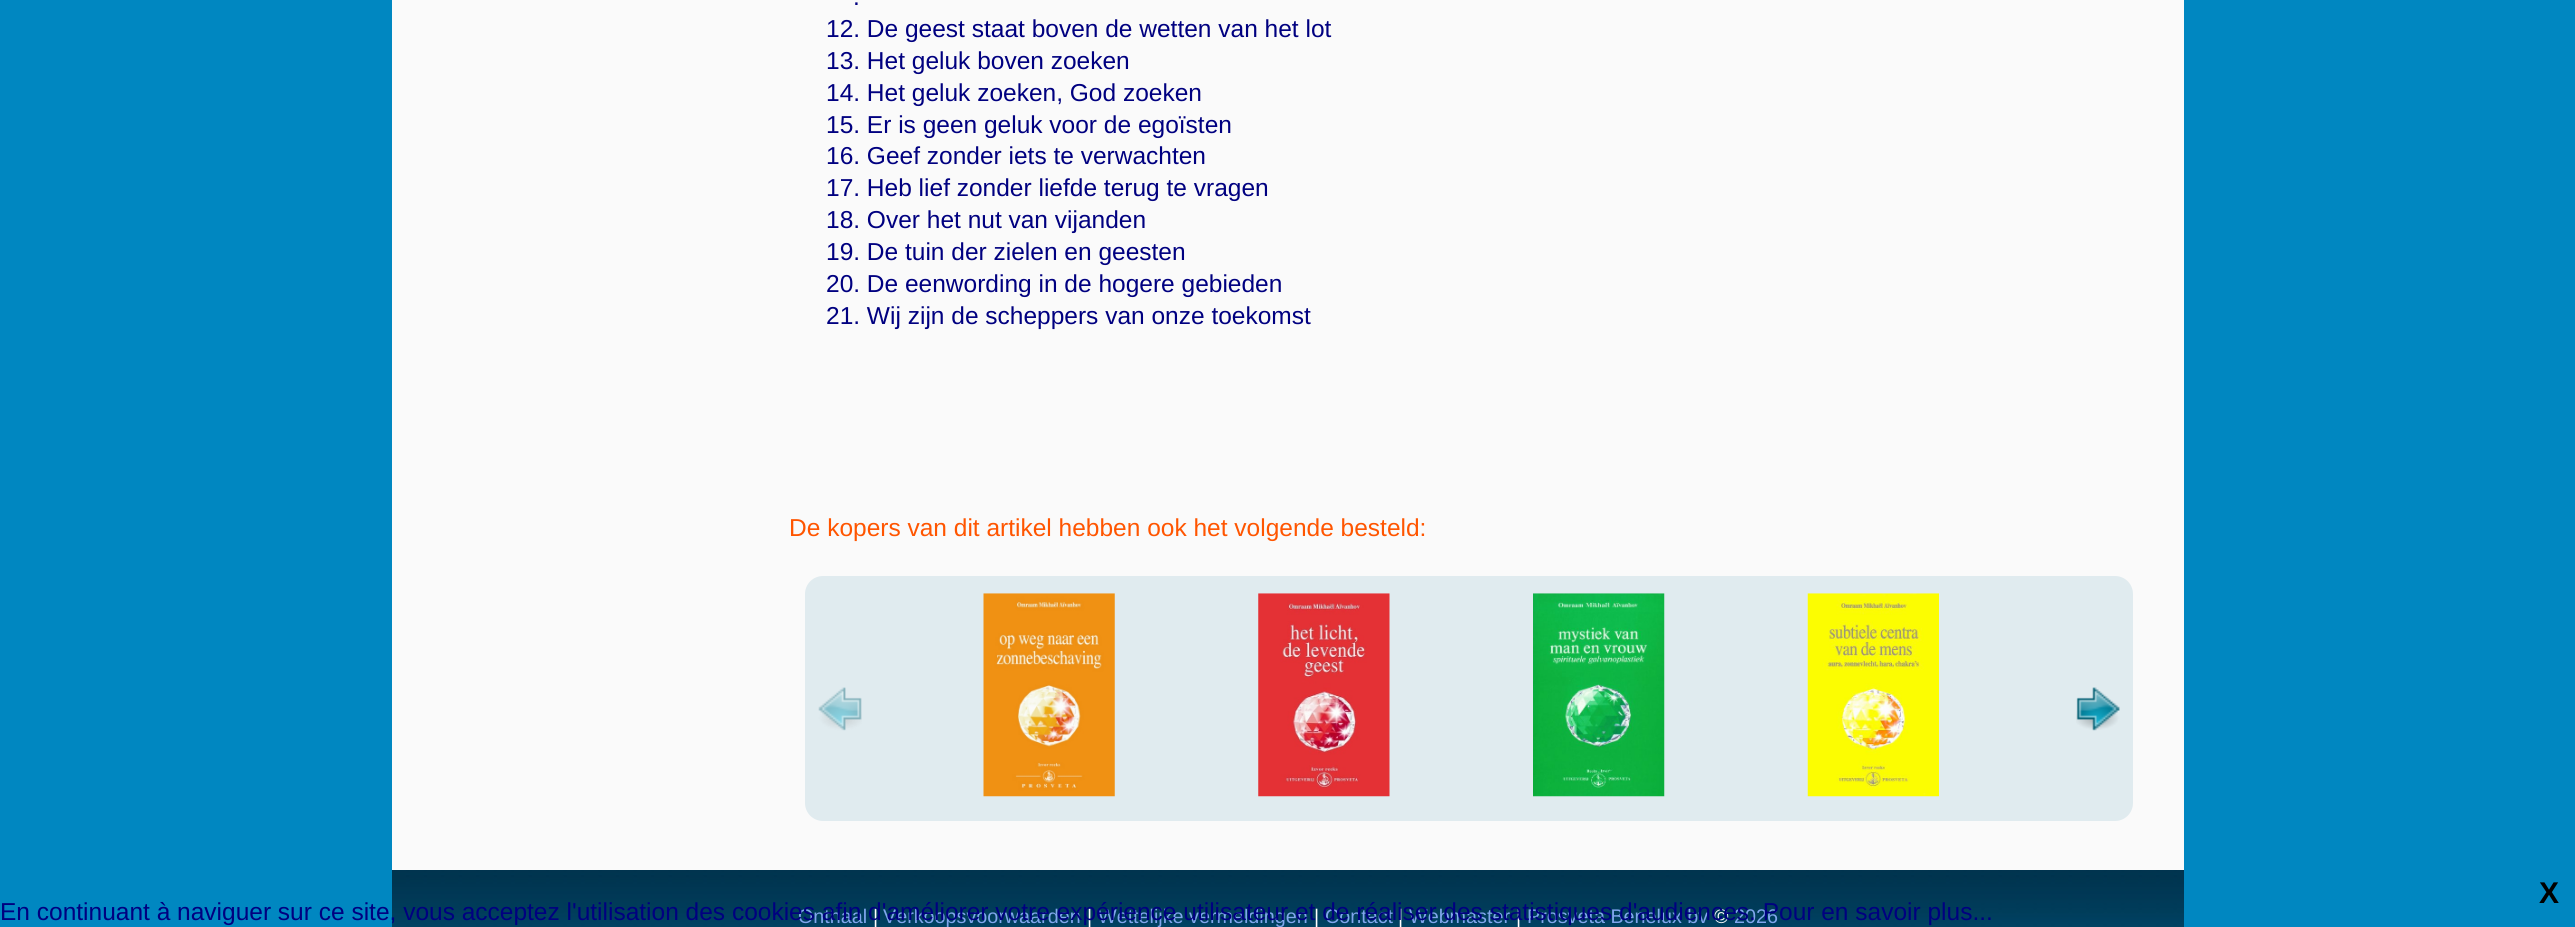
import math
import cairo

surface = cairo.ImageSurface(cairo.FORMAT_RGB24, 2575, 927)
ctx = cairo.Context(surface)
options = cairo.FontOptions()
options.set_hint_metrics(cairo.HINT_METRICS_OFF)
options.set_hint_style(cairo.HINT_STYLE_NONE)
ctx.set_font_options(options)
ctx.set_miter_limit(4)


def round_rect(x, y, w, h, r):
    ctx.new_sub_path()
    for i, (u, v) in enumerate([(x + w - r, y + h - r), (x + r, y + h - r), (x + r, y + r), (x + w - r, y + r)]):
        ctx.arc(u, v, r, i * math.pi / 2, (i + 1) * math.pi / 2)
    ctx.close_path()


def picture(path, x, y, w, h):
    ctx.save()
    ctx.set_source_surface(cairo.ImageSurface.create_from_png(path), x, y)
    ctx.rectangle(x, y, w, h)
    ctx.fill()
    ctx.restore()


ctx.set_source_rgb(0, 0.529, 0.757)
ctx.paint()
ctx.set_source_rgb(0.98, 0.98, 0.98)
ctx.rectangle(392, 0, 1792, 870)
ctx.fill()
ctx.select_font_face("Liberation Sans")
ctx.set_font_size(24.5)
ctx.set_source_rgb(0, 0, 0.502)
ctx.move_to(853, 5)
ctx.show_text(".")
ctx.move_to(826, 37)
ctx.show_text("12. De geest staat boven de wetten van het lot")
ctx.move_to(826, 69)
ctx.show_text("13. Het geluk boven zoeken")
ctx.move_to(826, 101)
ctx.show_text("14. Het geluk zoeken, God zoeken")
ctx.move_to(826, 133)
ctx.show_text("15. Er is geen geluk voor de egoïsten")
ctx.move_to(826, 164)
ctx.show_text("16. Geef zonder iets te verwachten")
ctx.move_to(826, 196)
ctx.show_text("17. Heb lief zonder liefde terug te vragen")
ctx.move_to(826, 228)
ctx.show_text("18. Over het nut van vijanden")
ctx.move_to(826, 260)
ctx.show_text("19. De tuin der zielen en geesten")
ctx.move_to(826, 292)
ctx.show_text("20. De eenwording in de hogere gebieden")
ctx.move_to(826, 324)
ctx.show_text("21. Wij zijn de scheppers van onze toekomst")
ctx.set_source_rgb(1, 0.333, 0)
ctx.move_to(789, 536)
ctx.show_text("De kopers van dit artikel hebben ook het volgende besteld:")
ctx.set_source_rgb(0.878, 0.918, 0.937)
round_rect(805, 576, 1328, 245, 18)
ctx.fill()
picture("img1.png", 818, 687, 44, 44)
picture("img2.png", 983, 593, 132, 204)
picture("img3.png", 1258, 593, 132, 204)
picture("img4.png", 1533, 593, 132, 204)
picture("img5.png", 1807, 593, 132, 204)
picture("img6.png", 2076, 687, 44, 44)
ctx.select_font_face("Liberation Sans", cairo.FONT_SLANT_NORMAL, cairo.FONT_WEIGHT_BOLD)
ctx.set_font_size(30)
ctx.set_source_rgb(0, 0, 0)
ctx.move_to(2539, 903)
ctx.show_text("X")
picture("img8.png", 392, 875, 1792, 52)
ctx.select_font_face("Liberation Sans")
ctx.set_font_size(19.75)
ctx.set_source_rgb(0.502, 0.651, 0.929)
ctx.move_to(798, 923)
ctx.show_text("Onthaal")
ctx.set_source_rgb(1, 1, 1)
ctx.move_to(873, 923)
ctx.show_text("|")
ctx.set_source_rgb(0.502, 0.651, 0.929)
ctx.move_to(883, 923)
ctx.show_text("Verkoopsvoorwaarden")
ctx.set_source_rgb(1, 1, 1)
ctx.move_to(1087, 923)
ctx.show_text("|")
ctx.set_source_rgb(0.502, 0.651, 0.929)
ctx.move_to(1098, 923)
ctx.show_text("Wettelijke vermeldingen")
ctx.set_source_rgb(1, 1, 1)
ctx.move_to(1314, 923)
ctx.show_text("|")
ctx.set_source_rgb(0.502, 0.651, 0.929)
ctx.move_to(1325, 923)
ctx.show_text("Contact")
ctx.set_source_rgb(1, 1, 1)
ctx.move_to(1398, 923)
ctx.show_text("|")
ctx.set_source_rgb(0.502, 0.651, 0.929)
ctx.move_to(1409, 923)
ctx.show_text("Webmaster")
ctx.set_source_rgb(1, 1, 1)
ctx.move_to(1516, 923)
ctx.show_text("|")
ctx.set_source_rgb(0.502, 0.651, 0.929)
ctx.move_to(1527, 923)
ctx.show_text("Prosveta Benelux bv")
ctx.set_source_rgb(1, 1, 1)
ctx.move_to(1714, 923)
ctx.show_text("©")
ctx.set_source_rgb(0.502, 0.651, 0.929)
ctx.move_to(1734, 923)
ctx.show_text("2026")
ctx.set_font_size(24.5)
ctx.set_source_rgb(0, 0, 0.502)
ctx.move_to(0, 920)
ctx.show_text("En continuant à naviguer sur ce site, vous acceptez l'utilisation des cookies afin d'améliorer votre expérience utilisateur et de réaliser des statistiques d'audiences. Pour en savoir plus...")
picture("img7.png", 392, 870, 1792, 5)
surface.write_to_png("page.png")
